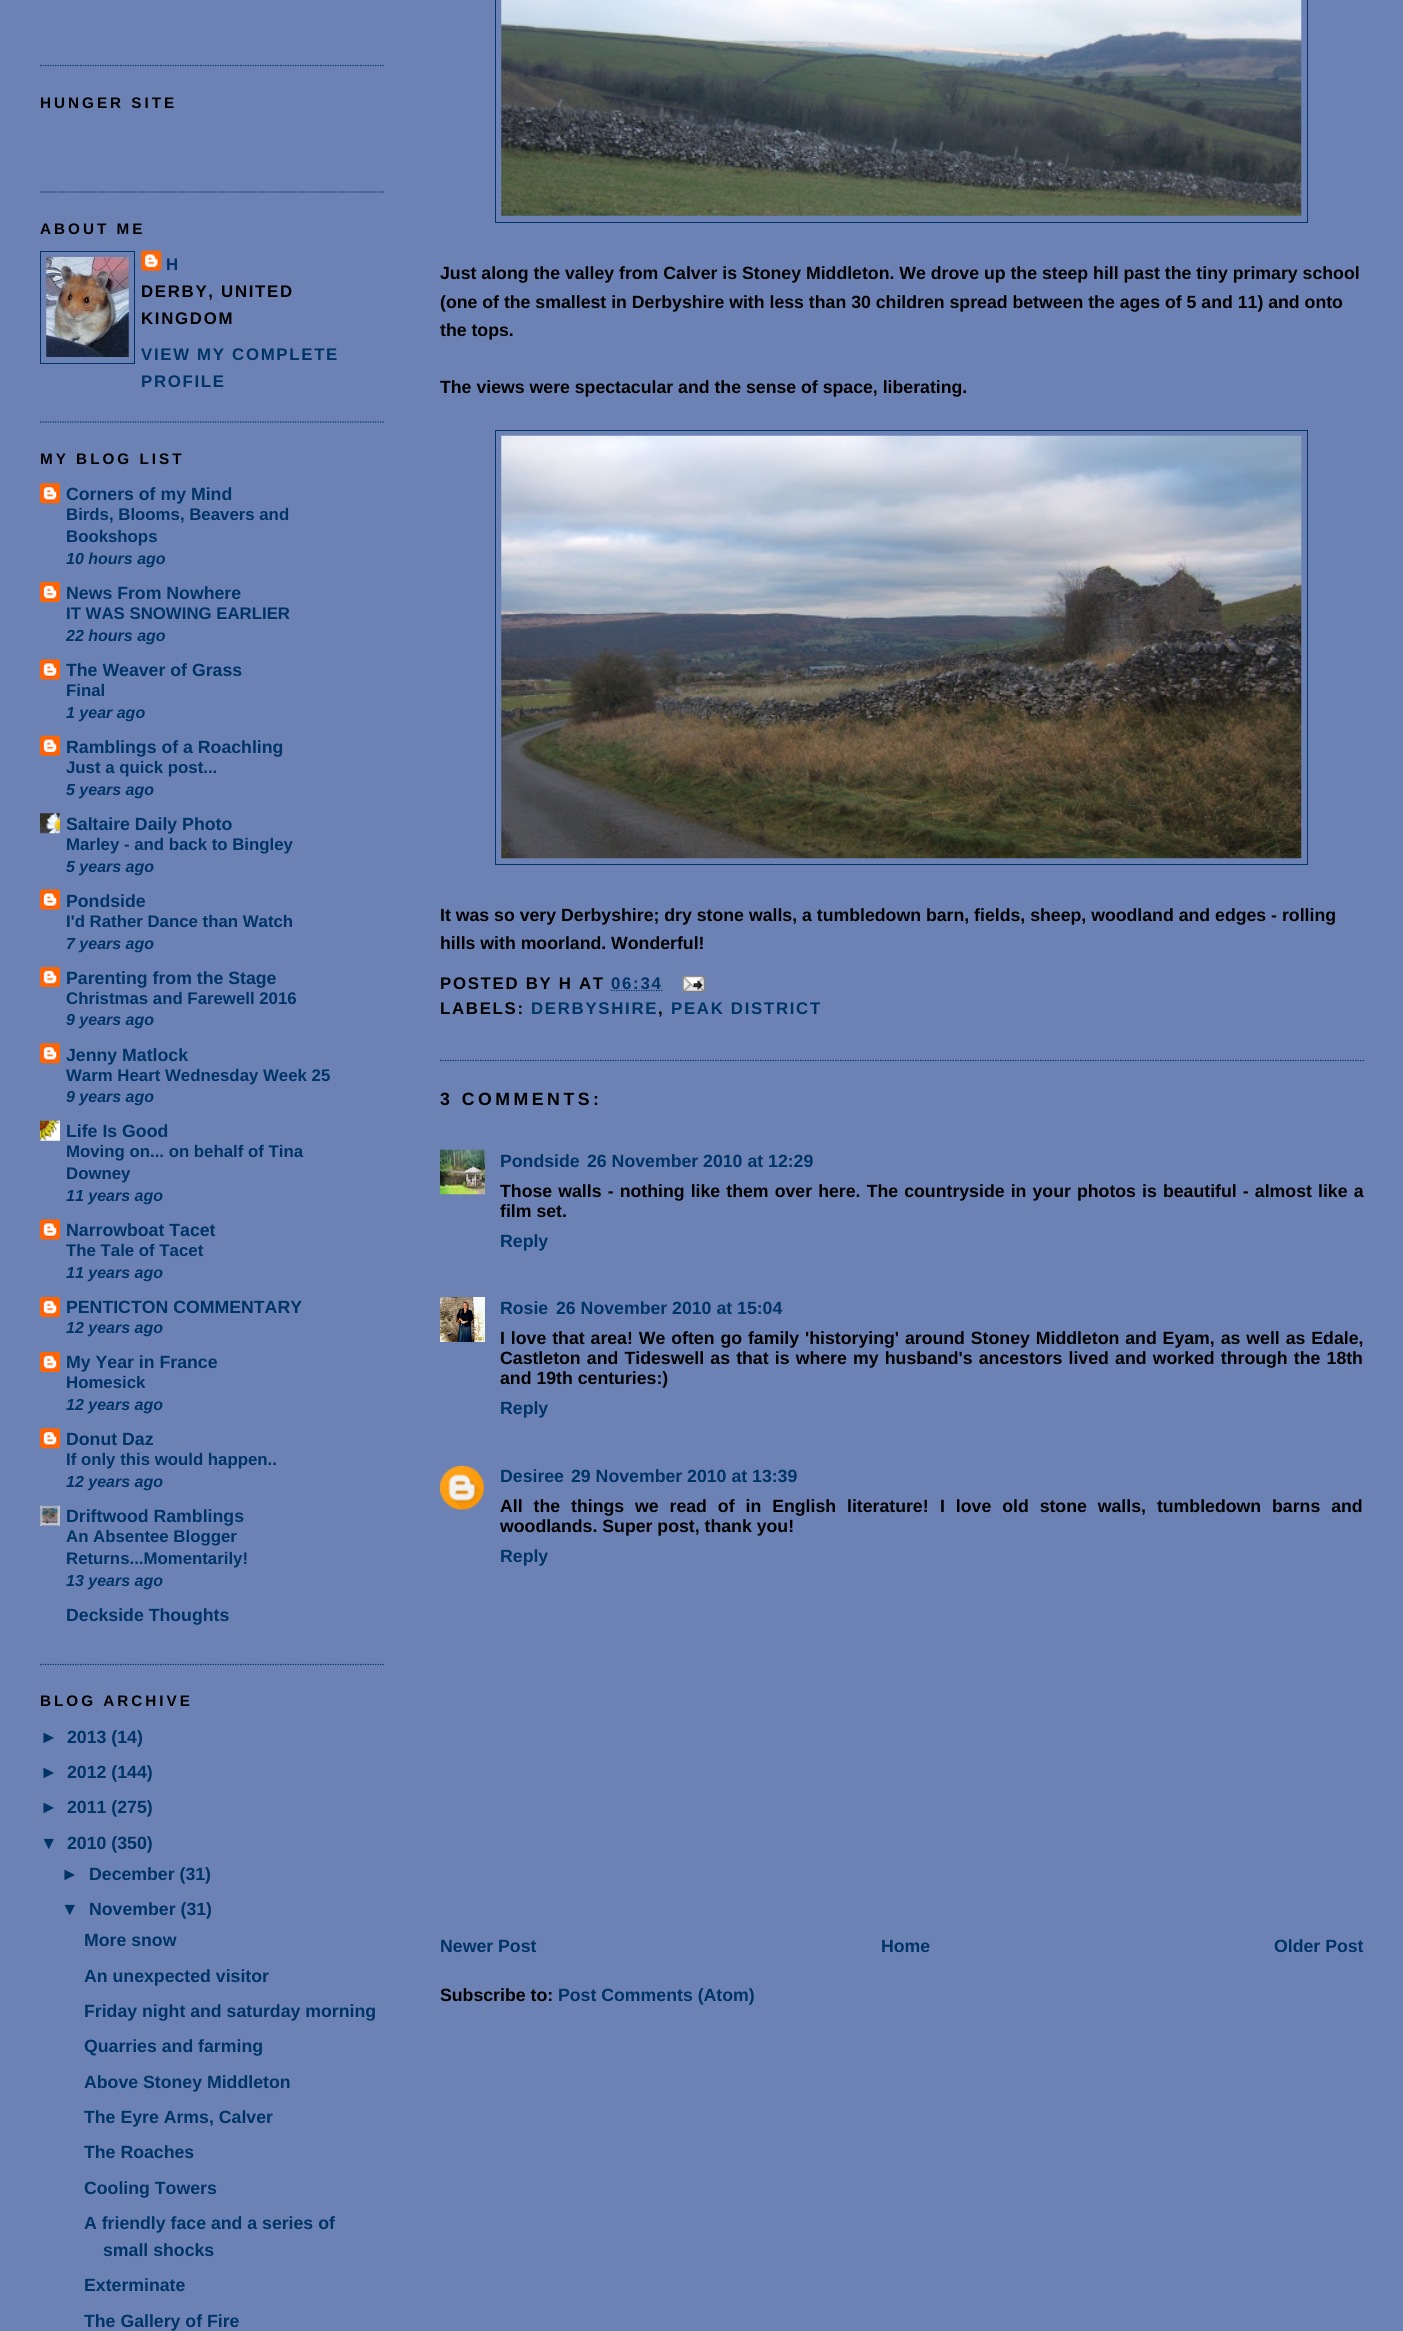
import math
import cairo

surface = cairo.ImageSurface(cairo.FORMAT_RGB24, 1403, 2331)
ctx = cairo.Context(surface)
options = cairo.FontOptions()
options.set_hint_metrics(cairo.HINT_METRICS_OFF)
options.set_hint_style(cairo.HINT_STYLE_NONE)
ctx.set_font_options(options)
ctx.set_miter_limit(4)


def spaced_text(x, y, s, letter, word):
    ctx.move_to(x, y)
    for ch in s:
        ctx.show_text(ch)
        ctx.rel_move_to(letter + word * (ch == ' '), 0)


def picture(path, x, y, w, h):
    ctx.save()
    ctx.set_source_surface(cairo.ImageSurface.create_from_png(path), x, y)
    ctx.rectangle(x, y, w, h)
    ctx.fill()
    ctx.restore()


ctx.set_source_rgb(0.424, 0.51, 0.71)
ctx.paint()
ctx.new_path()
ctx.move_to(40, 65.5)
ctx.line_to(385, 65.5)
ctx.set_source_rgb(0, 0.2, 0.4)
ctx.set_line_width(1.2)
ctx.set_dash([1.25, 1.25])
ctx.stroke()
ctx.new_path()
ctx.move_to(40, 192)
ctx.line_to(385, 192)
ctx.stroke()
ctx.select_font_face("Liberation Sans", cairo.FONT_SLANT_NORMAL, cairo.FONT_WEIGHT_BOLD)
ctx.set_font_size(15.25)
ctx.set_source_rgb(0, 0, 0)
spaced_text(40, 108, "HUNGER SITE", 3, 0)
ctx.new_path()
ctx.move_to(40, 422)
ctx.line_to(385, 422)
ctx.set_source_rgb(0, 0.2, 0.4)
ctx.stroke()
ctx.set_source_rgb(0, 0, 0)
spaced_text(40, 234, "ABOUT ME", 3, 0)
ctx.rectangle(40.5, 251.5, 94, 112)
ctx.set_source_rgb(0, 0.2, 0.4)
ctx.set_line_width(1)
ctx.set_dash([])
ctx.stroke()
picture("img1.png", 46, 257, 83, 100)
picture("img2.png", 141, 250, 21, 21)
ctx.set_font_size(16.8)
spaced_text(166, 270, "H", 1.7, 0)
ctx.set_source_rgb(0, 0, 0)
spaced_text(141, 297, "DERBY, UNITED", 1.7, 0)
spaced_text(141, 324, "KINGDOM", 1.7, 0)
ctx.set_source_rgb(0, 0.2, 0.4)
spaced_text(141, 360, "VIEW MY COMPLETE", 1.7, 0)
spaced_text(141, 387, "PROFILE", 1.7, 0)
ctx.new_path()
ctx.move_to(40, 1664.5)
ctx.line_to(385, 1664.5)
ctx.set_line_width(1.2)
ctx.set_dash([1.25, 1.25])
ctx.stroke()
ctx.set_font_size(15.25)
ctx.set_source_rgb(0, 0, 0)
spaced_text(40, 464, "MY BLOG LIST", 3, 0)
picture("img3.png", 40, 483, 20, 21)
ctx.set_font_size(17.7)
ctx.set_source_rgb(0, 0.2, 0.4)
ctx.move_to(66, 500)
ctx.show_text("Corners of my Mind")
ctx.set_font_size(16.8)
ctx.move_to(66, 520)
ctx.show_text("Birds, Blooms, Beavers and")
ctx.move_to(66, 542)
ctx.show_text("Bookshops")
ctx.select_font_face("Liberation Sans", cairo.FONT_SLANT_ITALIC, cairo.FONT_WEIGHT_BOLD)
ctx.set_font_size(16)
ctx.move_to(66, 564)
ctx.show_text("10 hours ago")
picture("img4.png", 40, 582, 20, 20)
ctx.select_font_face("Liberation Sans", cairo.FONT_SLANT_NORMAL, cairo.FONT_WEIGHT_BOLD)
ctx.set_font_size(17.7)
ctx.move_to(66, 599)
ctx.show_text("News From Nowhere")
ctx.set_font_size(16.8)
ctx.move_to(66, 619)
ctx.show_text("IT WAS SNOWING EARLIER")
ctx.select_font_face("Liberation Sans", cairo.FONT_SLANT_ITALIC, cairo.FONT_WEIGHT_BOLD)
ctx.set_font_size(16)
ctx.move_to(66, 641)
ctx.show_text("22 hours ago")
picture("img5.png", 40, 659, 20, 21)
ctx.select_font_face("Liberation Sans", cairo.FONT_SLANT_NORMAL, cairo.FONT_WEIGHT_BOLD)
ctx.set_font_size(17.7)
ctx.move_to(66, 676)
ctx.show_text("The Weaver of Grass")
ctx.set_font_size(16.8)
ctx.move_to(66, 696)
ctx.show_text("Final")
ctx.select_font_face("Liberation Sans", cairo.FONT_SLANT_ITALIC, cairo.FONT_WEIGHT_BOLD)
ctx.set_font_size(16)
ctx.move_to(66, 718)
ctx.show_text("1 year ago")
picture("img6.png", 40, 735, 20, 21)
ctx.select_font_face("Liberation Sans", cairo.FONT_SLANT_NORMAL, cairo.FONT_WEIGHT_BOLD)
ctx.set_font_size(17.7)
ctx.move_to(66, 753)
ctx.show_text("Ramblings of a Roachling")
ctx.set_font_size(16.8)
ctx.move_to(66, 773)
ctx.show_text("Just a quick post...")
ctx.select_font_face("Liberation Sans", cairo.FONT_SLANT_ITALIC, cairo.FONT_WEIGHT_BOLD)
ctx.set_font_size(16)
ctx.move_to(66, 795)
ctx.show_text("5 years ago")
picture("img7.png", 40, 813, 20, 21)
ctx.select_font_face("Liberation Sans", cairo.FONT_SLANT_NORMAL, cairo.FONT_WEIGHT_BOLD)
ctx.set_font_size(17.7)
ctx.move_to(66, 830)
ctx.show_text("Saltaire Daily Photo")
ctx.set_font_size(16.8)
ctx.move_to(66, 850)
ctx.show_text("Marley - and back to Bingley")
ctx.select_font_face("Liberation Sans", cairo.FONT_SLANT_ITALIC, cairo.FONT_WEIGHT_BOLD)
ctx.set_font_size(16)
ctx.move_to(66, 872)
ctx.show_text("5 years ago")
picture("img5.png", 40, 889, 20, 21)
ctx.select_font_face("Liberation Sans", cairo.FONT_SLANT_NORMAL, cairo.FONT_WEIGHT_BOLD)
ctx.set_font_size(17.7)
ctx.move_to(66, 907)
ctx.show_text("Pondside")
ctx.set_font_size(16.8)
ctx.move_to(66, 927)
ctx.show_text("I'd Rather Dance than Watch")
ctx.select_font_face("Liberation Sans", cairo.FONT_SLANT_ITALIC, cairo.FONT_WEIGHT_BOLD)
ctx.set_font_size(16)
ctx.move_to(66, 949)
ctx.show_text("7 years ago")
picture("img4.png", 40, 967, 20, 20)
ctx.select_font_face("Liberation Sans", cairo.FONT_SLANT_NORMAL, cairo.FONT_WEIGHT_BOLD)
ctx.set_font_size(17.7)
ctx.move_to(66, 984)
ctx.show_text("Parenting from the Stage")
ctx.set_font_size(16.8)
ctx.move_to(66, 1004)
ctx.show_text("Christmas and Farewell 2016")
ctx.select_font_face("Liberation Sans", cairo.FONT_SLANT_ITALIC, cairo.FONT_WEIGHT_BOLD)
ctx.set_font_size(16)
ctx.move_to(66, 1025)
ctx.show_text("9 years ago")
picture("img3.png", 40, 1043, 20, 21)
ctx.select_font_face("Liberation Sans", cairo.FONT_SLANT_NORMAL, cairo.FONT_WEIGHT_BOLD)
ctx.set_font_size(17.7)
ctx.move_to(66, 1061)
ctx.show_text("Jenny Matlock")
ctx.set_font_size(16.8)
ctx.move_to(66, 1081)
ctx.show_text("Warm Heart Wednesday Week 25")
ctx.select_font_face("Liberation Sans", cairo.FONT_SLANT_ITALIC, cairo.FONT_WEIGHT_BOLD)
ctx.set_font_size(16)
ctx.move_to(66, 1102)
ctx.show_text("9 years ago")
picture("img8.png", 40, 1120, 20, 21)
ctx.select_font_face("Liberation Sans", cairo.FONT_SLANT_NORMAL, cairo.FONT_WEIGHT_BOLD)
ctx.set_font_size(17.7)
ctx.move_to(66, 1137)
ctx.show_text("Life Is Good")
ctx.set_font_size(16.8)
ctx.move_to(66, 1157)
ctx.show_text("Moving on... on behalf of Tina")
ctx.move_to(66, 1179)
ctx.show_text("Downey")
ctx.select_font_face("Liberation Sans", cairo.FONT_SLANT_ITALIC, cairo.FONT_WEIGHT_BOLD)
ctx.set_font_size(16)
ctx.move_to(66, 1201)
ctx.show_text("11 years ago")
picture("img5.png", 40, 1219, 20, 21)
ctx.select_font_face("Liberation Sans", cairo.FONT_SLANT_NORMAL, cairo.FONT_WEIGHT_BOLD)
ctx.set_font_size(17.7)
ctx.move_to(66, 1236)
ctx.show_text("Narrowboat Tacet")
ctx.set_font_size(16.8)
ctx.move_to(66, 1256)
ctx.show_text("The Tale of Tacet")
ctx.select_font_face("Liberation Sans", cairo.FONT_SLANT_ITALIC, cairo.FONT_WEIGHT_BOLD)
ctx.set_font_size(16)
ctx.move_to(66, 1278)
ctx.show_text("11 years ago")
picture("img4.png", 40, 1297, 20, 20)
ctx.select_font_face("Liberation Sans", cairo.FONT_SLANT_NORMAL, cairo.FONT_WEIGHT_BOLD)
ctx.set_font_size(17.7)
ctx.move_to(66, 1313)
ctx.show_text("PENTICTON COMMENTARY")
ctx.select_font_face("Liberation Sans", cairo.FONT_SLANT_ITALIC, cairo.FONT_WEIGHT_BOLD)
ctx.set_font_size(16)
ctx.move_to(66, 1333)
ctx.show_text("12 years ago")
picture("img4.png", 40, 1352, 20, 20)
ctx.select_font_face("Liberation Sans", cairo.FONT_SLANT_NORMAL, cairo.FONT_WEIGHT_BOLD)
ctx.set_font_size(17.7)
ctx.move_to(66, 1368)
ctx.show_text("My Year in France")
ctx.set_font_size(16.8)
ctx.move_to(66, 1388)
ctx.show_text("Homesick")
ctx.select_font_face("Liberation Sans", cairo.FONT_SLANT_ITALIC, cairo.FONT_WEIGHT_BOLD)
ctx.set_font_size(16)
ctx.move_to(66, 1410)
ctx.show_text("12 years ago")
picture("img3.png", 40, 1428, 20, 21)
ctx.select_font_face("Liberation Sans", cairo.FONT_SLANT_NORMAL, cairo.FONT_WEIGHT_BOLD)
ctx.set_font_size(17.7)
ctx.move_to(66, 1445)
ctx.show_text("Donut Daz")
ctx.set_font_size(16.8)
ctx.move_to(66, 1465)
ctx.show_text("If only this would happen..")
ctx.select_font_face("Liberation Sans", cairo.FONT_SLANT_ITALIC, cairo.FONT_WEIGHT_BOLD)
ctx.set_font_size(16)
ctx.move_to(66, 1487)
ctx.show_text("12 years ago")
picture("img9.png", 40, 1505, 20, 21)
ctx.select_font_face("Liberation Sans", cairo.FONT_SLANT_NORMAL, cairo.FONT_WEIGHT_BOLD)
ctx.set_font_size(17.7)
ctx.move_to(66, 1522)
ctx.show_text("Driftwood Ramblings")
ctx.set_font_size(16.8)
ctx.move_to(66, 1542)
ctx.show_text("An Absentee Blogger")
ctx.move_to(66, 1564)
ctx.show_text("Returns...Momentarily!")
ctx.select_font_face("Liberation Sans", cairo.FONT_SLANT_ITALIC, cairo.FONT_WEIGHT_BOLD)
ctx.set_font_size(16)
ctx.move_to(66, 1586)
ctx.show_text("13 years ago")
ctx.select_font_face("Liberation Sans", cairo.FONT_SLANT_NORMAL, cairo.FONT_WEIGHT_BOLD)
ctx.set_font_size(17.7)
ctx.move_to(66, 1621)
ctx.show_text("Deckside Thoughts")
ctx.set_font_size(15.25)
ctx.set_source_rgb(0, 0, 0)
spaced_text(40, 1706, "BLOG ARCHIVE", 3, 0)
ctx.set_font_size(17.7)
ctx.set_source_rgb(0, 0.2, 0.4)
ctx.move_to(40, 1743)
ctx.show_text("►")
ctx.move_to(67, 1743)
ctx.show_text("2013 (14)")
ctx.move_to(40, 1778)
ctx.show_text("►")
ctx.move_to(67, 1778)
ctx.show_text("2012 (144)")
ctx.move_to(40, 1813)
ctx.show_text("►")
ctx.move_to(67, 1813)
ctx.show_text("2011 (275)")
ctx.move_to(40, 1849)
ctx.show_text("▼")
ctx.move_to(67, 1849)
ctx.show_text("2010 (350)")
ctx.move_to(61, 1880)
ctx.show_text("►")
ctx.move_to(89, 1880)
ctx.show_text("December (31)")
ctx.move_to(61, 1915)
ctx.show_text("▼")
ctx.move_to(89, 1915)
ctx.show_text("November (31)")
ctx.move_to(84, 1946)
ctx.show_text("More snow")
ctx.move_to(84, 1982)
ctx.show_text("An unexpected visitor")
ctx.move_to(84, 2017)
ctx.show_text("Friday night and saturday morning")
ctx.move_to(84, 2052)
ctx.show_text("Quarries and farming")
ctx.move_to(84, 2088)
ctx.show_text("Above Stoney Middleton")
ctx.move_to(84, 2123)
ctx.show_text("The Eyre Arms, Calver")
ctx.move_to(84, 2158)
ctx.show_text("The Roaches")
ctx.move_to(84, 2194)
ctx.show_text("Cooling Towers")
ctx.move_to(84, 2229)
ctx.show_text("A friendly face and a series of")
ctx.move_to(103, 2256)
ctx.show_text("small shocks")
ctx.move_to(84, 2291)
ctx.show_text("Exterminate")
ctx.move_to(84, 2327)
ctx.show_text("The Gallery of Fire")
ctx.new_path()
ctx.move_to(440, 1060.5)
ctx.line_to(1364, 1060.5)
ctx.stroke()
ctx.rectangle(495.5, -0.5, 812, 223)
ctx.set_line_width(1)
ctx.set_dash([])
ctx.stroke()
picture("img10.png", 501, 0, 801, 216)
ctx.set_source_rgb(0, 0, 0)
ctx.move_to(440, 279)
ctx.show_text("Just along the valley from Calver is Stoney Middleton. We drove up the steep hill past the tiny primary school")
ctx.move_to(440, 308)
ctx.show_text("(one of the smallest in Derbyshire with less than 30 children spread between the ages of 5 and 11) and onto")
ctx.move_to(440, 336)
ctx.show_text("the tops.")
ctx.move_to(440, 393)
ctx.show_text("The views were spectacular and the sense of space, liberating.")
ctx.rectangle(495.5, 430.5, 812, 434)
ctx.set_source_rgb(0, 0.2, 0.4)
ctx.stroke()
picture("img11.png", 501, 435, 801, 424)
ctx.set_source_rgb(0, 0, 0)
ctx.move_to(440, 921)
ctx.show_text("It was so very Derbyshire; dry stone walls, a tumbledown barn, fields, sheep, woodland and edges - rolling")
ctx.move_to(440, 949)
ctx.show_text("hills with moorland. Wonderful!")
ctx.set_font_size(16.8)
spaced_text(440, 989, "POSTED BY H AT", 1.7, 0)
ctx.new_path()
ctx.move_to(611, 990.5)
ctx.line_to(662.5, 990.5)
ctx.set_source_rgb(0, 0.2, 0.4)
ctx.set_line_width(1.2)
ctx.set_dash([1.25, 1.25])
ctx.stroke()
spaced_text(611, 989, "06:34", 1.7, 0)
picture("img12.png", 682, 975, 23, 17)
ctx.set_source_rgb(0, 0, 0)
spaced_text(440, 1014, "LABELS:", 1.7, 0)
ctx.set_source_rgb(0, 0.2, 0.4)
spaced_text(531, 1014, "DERBYSHIRE", 1.7, 0)
ctx.set_source_rgb(0, 0, 0)
spaced_text(658, 1014, ",", 1.7, 0)
ctx.set_source_rgb(0, 0.2, 0.4)
spaced_text(671, 1014, "PEAK DISTRICT", 1.7, 0)
ctx.set_font_size(17.7)
ctx.set_source_rgb(0, 0, 0)
spaced_text(440, 1105, "3 COMMENTS:", 3.5, 0)
picture("img13.png", 440, 1149, 45, 46)
ctx.set_source_rgb(0, 0.2, 0.4)
ctx.move_to(500, 1167)
ctx.show_text("Pondside")
ctx.move_to(587, 1167)
ctx.show_text("26 November 2010 at 12:29")
ctx.set_source_rgb(0, 0, 0)
spaced_text(500, 1197, "Those walls - nothing like them over here. The countryside in your photos is beautiful - almost like a", 0, 1.2)
ctx.move_to(500, 1217)
ctx.show_text("film set.")
ctx.set_source_rgb(0, 0.2, 0.4)
ctx.move_to(500, 1247)
ctx.show_text("Reply")
picture("img14.png", 440, 1297, 45, 45)
ctx.move_to(500, 1314)
ctx.show_text("Rosie")
ctx.move_to(556, 1314)
ctx.show_text("26 November 2010 at 15:04")
ctx.set_source_rgb(0, 0, 0)
spaced_text(500, 1344, "I love that area! We often go family 'historying' around Stoney Middleton and Eyam, as well as Edale,", 0, 1)
spaced_text(500, 1364, "Castleton and Tideswell as that is where my husband's ancestors lived and worked through the 18th", 0, 1.25)
ctx.move_to(500, 1384)
ctx.show_text("and 19th centuries:)")
ctx.set_source_rgb(0, 0.2, 0.4)
ctx.move_to(500, 1414)
ctx.show_text("Reply")
picture("img15.png", 440, 1465, 44, 45)
ctx.move_to(500, 1482)
ctx.show_text("Desiree")
ctx.move_to(571, 1482)
ctx.show_text("29 November 2010 at 13:39")
ctx.set_source_rgb(0, 0, 0)
spaced_text(500, 1512, "All the things we read of in English literature!", 0, 6)
spaced_text(940, 1512, "I love old stone walls, tumbledown barns and", 0, 6)
ctx.move_to(500, 1532)
ctx.show_text("woodlands. Super post, thank you!")
ctx.set_source_rgb(0, 0.2, 0.4)
ctx.move_to(500, 1562)
ctx.show_text("Reply")
ctx.move_to(440, 1952)
ctx.show_text("Newer Post")
ctx.move_to(881, 1952)
ctx.show_text("Home")
ctx.move_to(1274, 1952)
ctx.show_text("Older Post")
ctx.set_source_rgb(0, 0, 0)
ctx.move_to(440, 2001)
ctx.show_text("Subscribe to:")
ctx.set_source_rgb(0, 0.2, 0.4)
ctx.move_to(558, 2001)
ctx.show_text("Post Comments (Atom)")
surface.write_to_png("page.png")
